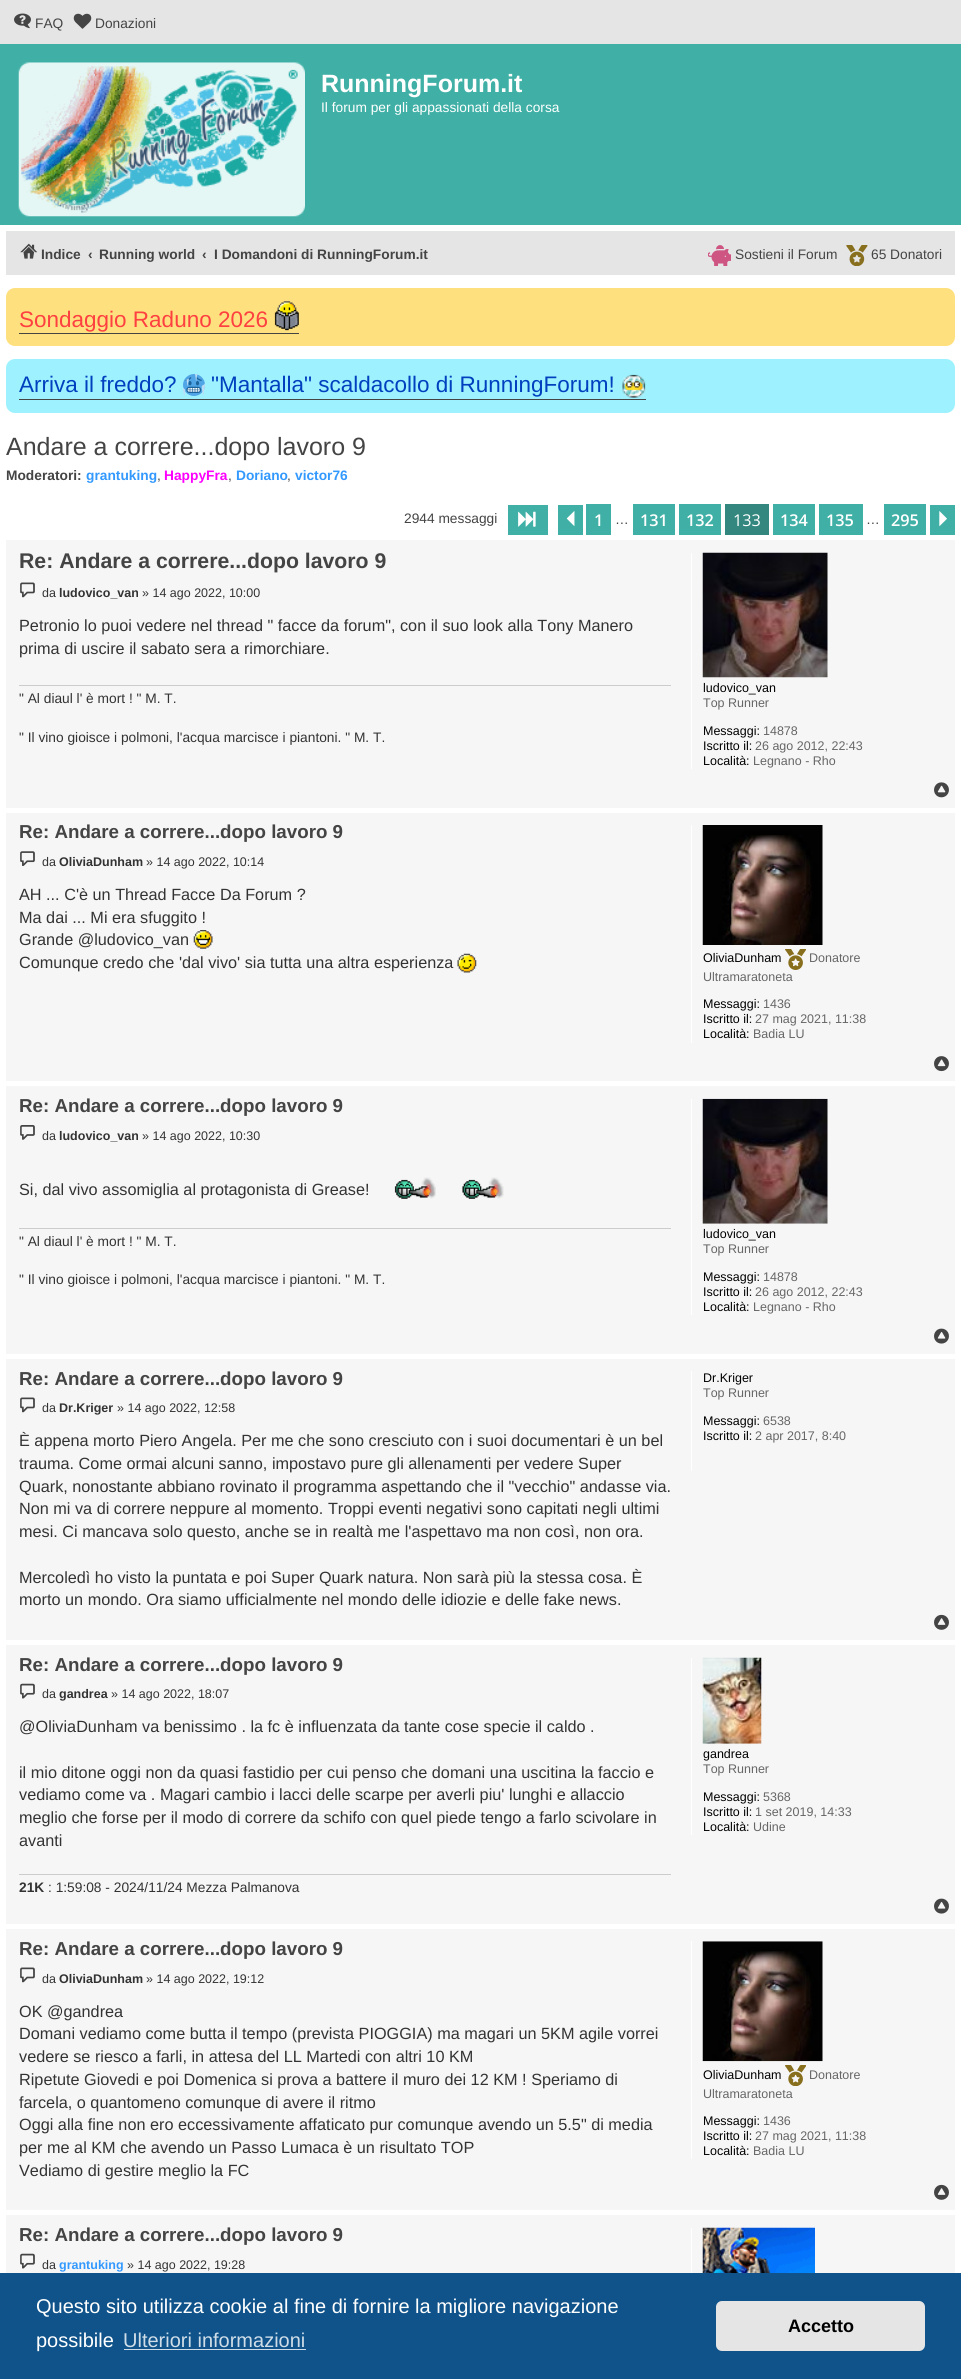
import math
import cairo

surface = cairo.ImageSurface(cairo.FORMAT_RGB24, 961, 2379)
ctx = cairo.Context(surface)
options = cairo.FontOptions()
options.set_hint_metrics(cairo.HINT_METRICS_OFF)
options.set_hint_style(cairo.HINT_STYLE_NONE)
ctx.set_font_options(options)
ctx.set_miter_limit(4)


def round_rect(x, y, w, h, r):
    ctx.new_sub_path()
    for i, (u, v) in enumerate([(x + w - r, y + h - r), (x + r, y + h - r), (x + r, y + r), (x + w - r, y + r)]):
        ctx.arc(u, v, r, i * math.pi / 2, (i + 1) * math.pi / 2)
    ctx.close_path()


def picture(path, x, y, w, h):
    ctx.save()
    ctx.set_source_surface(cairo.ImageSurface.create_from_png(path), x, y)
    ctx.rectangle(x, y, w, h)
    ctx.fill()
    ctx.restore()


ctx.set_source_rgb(0.898, 0.898, 0.898)
ctx.paint()
picture("img1.png", 14, 13, 17, 16)
ctx.select_font_face("Liberation Sans")
ctx.set_font_size(13.75)
ctx.set_source_rgb(0.267, 0.267, 0.267)
ctx.move_to(35, 28)
ctx.show_text("FAQ")
picture("img2.png", 73, 13, 19, 16)
ctx.move_to(95, 28)
ctx.show_text("Donazioni")
ctx.set_source_rgb(0.251, 0.69, 0.651)
ctx.rectangle(0, 44, 961, 181)
ctx.fill()
picture("img3.png", 18, 62, 287, 155)
ctx.select_font_face("Liberation Sans", cairo.FONT_SLANT_NORMAL, cairo.FONT_WEIGHT_BOLD)
ctx.set_font_size(25)
ctx.set_source_rgb(1, 1, 1)
ctx.move_to(321, 92)
ctx.show_text("RunningForum.it")
ctx.select_font_face("Liberation Sans")
ctx.set_font_size(13.75)
ctx.move_to(321, 112)
ctx.show_text("Il forum per gli appassionati della corsa")
ctx.rectangle(0, 225, 961, 2048)
ctx.fill()
ctx.set_source_rgb(0.898, 0.898, 0.898)
ctx.rectangle(6, 231, 949, 44)
ctx.fill()
picture("img4.png", 20, 243, 18, 16)
ctx.select_font_face("Liberation Sans", cairo.FONT_SLANT_NORMAL, cairo.FONT_WEIGHT_BOLD)
ctx.set_source_rgb(0.267, 0.267, 0.267)
ctx.move_to(41, 259)
ctx.show_text("Indice")
ctx.move_to(88, 259)
ctx.show_text("‹")
ctx.move_to(99, 259)
ctx.show_text("Running world")
ctx.move_to(202, 259)
ctx.show_text("‹")
ctx.move_to(214, 259)
ctx.show_text("I Domandoni di RunningForum.it")
picture("img5.png", 708, 245, 23, 21)
ctx.select_font_face("Liberation Sans")
ctx.move_to(735, 259)
ctx.show_text("Sostieni il Forum")
picture("img6.png", 846, 245, 22, 21)
ctx.move_to(871, 259)
ctx.show_text("65 Donatori")
ctx.set_source_rgb(1, 0.878, 0.498)
round_rect(6, 288, 949, 58, 9)
ctx.fill()
ctx.set_source_rgb(0.267, 0.267, 0.267)
ctx.rectangle(19, 333, 280, 1)
ctx.fill()
ctx.set_font_size(22.5)
ctx.set_source_rgb(1, 0.251, 0.251)
ctx.move_to(19, 327)
ctx.show_text("Sondaggio Raduno 2026")
picture("img7.png", 274, 301, 25, 30)
ctx.set_source_rgb(0.62, 0.949, 1)
round_rect(6, 359, 949, 54, 9)
ctx.fill()
ctx.set_source_rgb(0.267, 0.267, 0.267)
ctx.rectangle(19, 399, 627, 1)
ctx.fill()
ctx.set_source_rgb(0, 0.251, 0.749)
ctx.move_to(19, 392)
ctx.show_text("Arriva il freddo?")
picture("img8.png", 183, 374, 22, 22)
ctx.move_to(211, 392)
ctx.show_text("\"Mantalla\" scaldacollo di RunningForum!")
picture("img9.png", 622, 374, 24, 24)
ctx.set_font_size(25)
ctx.set_source_rgb(0.267, 0.267, 0.267)
ctx.move_to(6, 455)
ctx.show_text("Andare a correre...dopo lavoro 9")
ctx.select_font_face("Liberation Sans", cairo.FONT_SLANT_NORMAL, cairo.FONT_WEIGHT_BOLD)
ctx.set_font_size(13.75)
ctx.move_to(6, 480)
ctx.show_text("Moderatori:")
ctx.set_source_rgb(0.2, 0.6, 1)
ctx.move_to(86, 480)
ctx.show_text("grantuking")
ctx.select_font_face("Liberation Sans")
ctx.set_source_rgb(0.267, 0.267, 0.267)
ctx.move_to(157, 480)
ctx.show_text(",")
ctx.select_font_face("Liberation Sans", cairo.FONT_SLANT_NORMAL, cairo.FONT_WEIGHT_BOLD)
ctx.set_source_rgb(1, 0, 1)
ctx.move_to(164, 480)
ctx.show_text("HappyFra")
ctx.select_font_face("Liberation Sans")
ctx.set_source_rgb(0.267, 0.267, 0.267)
ctx.move_to(228, 480)
ctx.show_text(",")
ctx.select_font_face("Liberation Sans", cairo.FONT_SLANT_NORMAL, cairo.FONT_WEIGHT_BOLD)
ctx.set_source_rgb(0.2, 0.6, 1)
ctx.move_to(236, 480)
ctx.show_text("Doriano")
ctx.select_font_face("Liberation Sans")
ctx.set_source_rgb(0.267, 0.267, 0.267)
ctx.move_to(287, 480)
ctx.show_text(",")
ctx.select_font_face("Liberation Sans", cairo.FONT_SLANT_NORMAL, cairo.FONT_WEIGHT_BOLD)
ctx.set_source_rgb(0.2, 0.6, 1)
ctx.move_to(295, 480)
ctx.show_text("victor76")
ctx.select_font_face("Liberation Sans")
ctx.set_source_rgb(0.267, 0.267, 0.267)
ctx.move_to(404, 523)
ctx.show_text("2944 messaggi")
ctx.set_source_rgb(0.251, 0.69, 0.651)
ctx.rectangle(508, 505, 40, 30)
ctx.fill()
picture("img10.png", 518, 511, 18, 16)
ctx.rectangle(558, 505, 25, 30)
ctx.fill()
picture("img11.png", 566, 511, 9, 15)
ctx.rectangle(586, 504, 25, 31)
ctx.fill()
ctx.select_font_face("Open Sans SemiBold")
ctx.set_font_size(16.25)
ctx.set_source_rgb(1, 1, 1)
ctx.move_to(594, 526)
ctx.show_text("1")
ctx.select_font_face("Liberation Sans")
ctx.set_font_size(13.75)
ctx.set_source_rgb(0.267, 0.267, 0.267)
ctx.move_to(615, 524)
ctx.show_text("…")
ctx.set_source_rgb(0.251, 0.69, 0.651)
ctx.rectangle(633, 504, 42, 31)
ctx.fill()
ctx.select_font_face("Open Sans SemiBold")
ctx.set_font_size(16.25)
ctx.set_source_rgb(1, 1, 1)
ctx.move_to(640, 526)
ctx.show_text("131")
ctx.set_source_rgb(0.251, 0.69, 0.651)
ctx.rectangle(679, 504, 42, 31)
ctx.fill()
ctx.set_source_rgb(1, 1, 1)
ctx.move_to(686, 526)
ctx.show_text("132")
ctx.set_source_rgb(0.2, 0.529, 0.498)
ctx.rectangle(725, 504, 44, 31)
ctx.fill()
ctx.select_font_face("Open Sans")
ctx.set_source_rgb(1, 1, 1)
ctx.move_to(733, 526)
ctx.show_text("133")
ctx.set_source_rgb(0.251, 0.69, 0.651)
ctx.rectangle(773, 504, 42, 31)
ctx.fill()
ctx.select_font_face("Open Sans SemiBold")
ctx.set_source_rgb(1, 1, 1)
ctx.move_to(780, 526)
ctx.show_text("134")
ctx.set_source_rgb(0.251, 0.69, 0.651)
ctx.rectangle(819, 504, 44, 31)
ctx.fill()
ctx.set_source_rgb(1, 1, 1)
ctx.move_to(826, 526)
ctx.show_text("135")
ctx.select_font_face("Liberation Sans")
ctx.set_font_size(13.75)
ctx.set_source_rgb(0.267, 0.267, 0.267)
ctx.move_to(866, 524)
ctx.show_text("…")
ctx.set_source_rgb(0.251, 0.69, 0.651)
ctx.rectangle(884, 504, 42, 31)
ctx.fill()
ctx.select_font_face("Open Sans SemiBold")
ctx.set_font_size(16.25)
ctx.set_source_rgb(1, 1, 1)
ctx.move_to(891, 526)
ctx.show_text("295")
ctx.set_source_rgb(0.251, 0.69, 0.651)
ctx.rectangle(930, 505, 25, 30)
ctx.fill()
picture("img12.png", 939, 511, 8, 16)
ctx.set_source_rgb(0.961, 0.961, 0.961)
ctx.rectangle(6, 540, 949, 268)
ctx.fill()
ctx.select_font_face("Liberation Sans", cairo.FONT_SLANT_NORMAL, cairo.FONT_WEIGHT_BOLD)
ctx.set_font_size(21.25)
ctx.set_source_rgb(0.267, 0.267, 0.267)
ctx.move_to(19, 568)
ctx.show_text("Re: Andare a correre...dopo lavoro 9")
picture("img13.png", 20, 582, 15, 16)
ctx.select_font_face("Liberation Sans")
ctx.set_font_size(12.5)
ctx.set_source_rgb(0.2, 0.2, 0.2)
ctx.move_to(42, 597)
ctx.show_text("da")
ctx.select_font_face("Liberation Sans", cairo.FONT_SLANT_NORMAL, cairo.FONT_WEIGHT_BOLD)
ctx.move_to(59, 597)
ctx.show_text("ludovico_van")
ctx.select_font_face("Liberation Sans")
ctx.move_to(142, 597)
ctx.show_text("» 14 ago 2022, 10:00")
ctx.set_font_size(16.25)
ctx.move_to(19, 631)
ctx.show_text("Petronio lo puoi vedere nel thread \" facce da forum\", con il suo look alla Tony Manero")
ctx.move_to(19, 654)
ctx.show_text("prima di uscire il sabato sera a rimorchiare.")
ctx.set_source_rgb(0.8, 0.8, 0.8)
ctx.rectangle(19, 685, 652, 1)
ctx.fill()
ctx.set_font_size(13.75)
ctx.set_source_rgb(0.2, 0.2, 0.2)
ctx.move_to(19, 703)
ctx.show_text("\" Al diaul l' è mort ! \" M. T.")
ctx.move_to(19, 742)
ctx.show_text("\" Il vino gioisce i polmoni, l'acqua marcisce i piantoni. \" M. T.")
ctx.set_source_rgb(1, 1, 1)
ctx.rectangle(691, 553, 1, 216)
ctx.fill()
picture("img14.png", 702, 552, 126, 126)
ctx.set_font_size(12.5)
ctx.set_source_rgb(0, 0, 0)
ctx.move_to(703, 692)
ctx.show_text("ludovico_van")
ctx.set_source_rgb(0.4, 0.4, 0.4)
ctx.move_to(703, 707)
ctx.show_text("Top Runner")
ctx.set_source_rgb(0, 0, 0)
ctx.move_to(703, 735)
ctx.show_text("Messaggi:")
ctx.set_source_rgb(0.4, 0.4, 0.4)
ctx.move_to(763, 735)
ctx.show_text("14878")
ctx.set_source_rgb(0, 0, 0)
ctx.move_to(703, 750)
ctx.show_text("Iscritto il:")
ctx.set_source_rgb(0.4, 0.4, 0.4)
ctx.move_to(755, 750)
ctx.show_text("26 ago 2012, 22:43")
ctx.set_source_rgb(0, 0, 0)
ctx.move_to(703, 765)
ctx.show_text("Località:")
ctx.set_source_rgb(0.4, 0.4, 0.4)
ctx.move_to(753, 765)
ctx.show_text("Legnano - Rho")
picture("img15.png", 934, 782, 15, 16)
ctx.set_source_rgb(0.961, 0.961, 0.961)
ctx.rectangle(6, 813, 949, 268)
ctx.fill()
ctx.select_font_face("Liberation Sans", cairo.FONT_SLANT_NORMAL, cairo.FONT_WEIGHT_BOLD)
ctx.set_font_size(18.75)
ctx.set_source_rgb(0.267, 0.267, 0.267)
ctx.move_to(19, 838)
ctx.show_text("Re: Andare a correre...dopo lavoro 9")
picture("img16.png", 20, 851, 15, 15)
ctx.select_font_face("Liberation Sans")
ctx.set_font_size(12.5)
ctx.set_source_rgb(0.2, 0.2, 0.2)
ctx.move_to(42, 866)
ctx.show_text("da")
ctx.select_font_face("Liberation Sans", cairo.FONT_SLANT_NORMAL, cairo.FONT_WEIGHT_BOLD)
ctx.move_to(59, 866)
ctx.show_text("OliviaDunham")
ctx.select_font_face("Liberation Sans")
ctx.move_to(146, 866)
ctx.show_text("» 14 ago 2022, 10:14")
ctx.set_font_size(16.25)
ctx.move_to(19, 900)
ctx.show_text("AH ... C'è un Thread Facce Da Forum ?")
ctx.move_to(19, 923)
ctx.show_text("Ma dai ... Mi era sfuggito !")
ctx.move_to(19, 945)
ctx.show_text("Grande @ludovico_van")
picture("img17.png", 193, 930, 20, 19)
ctx.move_to(19, 968)
ctx.show_text("Comunque credo che 'dal vivo' sia tutta una altra esperienza")
picture("img18.png", 457, 953, 20, 20)
ctx.set_source_rgb(1, 1, 1)
ctx.rectangle(691, 825, 1, 218)
ctx.fill()
picture("img19.png", 702, 825, 121, 120)
ctx.set_font_size(12.5)
ctx.set_source_rgb(0, 0, 0)
ctx.move_to(703, 962)
ctx.show_text("OliviaDunham")
picture("img20.png", 785, 949, 21, 21)
ctx.set_source_rgb(0.4, 0.4, 0.4)
ctx.move_to(809, 962)
ctx.show_text("Donatore")
ctx.move_to(703, 981)
ctx.show_text("Ultramaratoneta")
ctx.set_source_rgb(0, 0, 0)
ctx.move_to(703, 1008)
ctx.show_text("Messaggi:")
ctx.set_source_rgb(0.4, 0.4, 0.4)
ctx.move_to(763, 1008)
ctx.show_text("1436")
ctx.set_source_rgb(0, 0, 0)
ctx.move_to(703, 1023)
ctx.show_text("Iscritto il:")
ctx.set_source_rgb(0.4, 0.4, 0.4)
ctx.move_to(755, 1023)
ctx.show_text("27 mag 2021, 11:38")
ctx.set_source_rgb(0, 0, 0)
ctx.move_to(703, 1038)
ctx.show_text("Località:")
ctx.set_source_rgb(0.4, 0.4, 0.4)
ctx.move_to(753, 1038)
ctx.show_text("Badia LU")
picture("img21.png", 934, 1056, 15, 16)
ctx.set_source_rgb(0.961, 0.961, 0.961)
ctx.rectangle(6, 1086, 949, 268)
ctx.fill()
ctx.select_font_face("Liberation Sans", cairo.FONT_SLANT_NORMAL, cairo.FONT_WEIGHT_BOLD)
ctx.set_font_size(18.75)
ctx.set_source_rgb(0.267, 0.267, 0.267)
ctx.move_to(19, 1112)
ctx.show_text("Re: Andare a correre...dopo lavoro 9")
picture("img22.png", 20, 1125, 15, 15)
ctx.select_font_face("Liberation Sans")
ctx.set_font_size(12.5)
ctx.set_source_rgb(0.2, 0.2, 0.2)
ctx.move_to(42, 1140)
ctx.show_text("da")
ctx.select_font_face("Liberation Sans", cairo.FONT_SLANT_NORMAL, cairo.FONT_WEIGHT_BOLD)
ctx.move_to(59, 1140)
ctx.show_text("ludovico_van")
ctx.select_font_face("Liberation Sans")
ctx.move_to(142, 1140)
ctx.show_text("» 14 ago 2022, 10:30")
ctx.set_font_size(16.25)
ctx.move_to(19, 1195)
ctx.show_text("Si, dal vivo assomiglia al protagonista di Grease!")
picture("img23.png", 394, 1177, 42, 22)
picture("img24.png", 462, 1177, 42, 22)
ctx.set_source_rgb(0.8, 0.8, 0.8)
ctx.rectangle(19, 1228, 652, 1)
ctx.fill()
ctx.set_font_size(13.75)
ctx.set_source_rgb(0.2, 0.2, 0.2)
ctx.move_to(19, 1246)
ctx.show_text("\" Al diaul l' è mort ! \" M. T.")
ctx.move_to(19, 1284)
ctx.show_text("\" Il vino gioisce i polmoni, l'acqua marcisce i piantoni. \" M. T.")
ctx.set_source_rgb(1, 1, 1)
ctx.rectangle(691, 1099, 1, 216)
ctx.fill()
picture("img25.png", 702, 1098, 126, 126)
ctx.set_font_size(12.5)
ctx.set_source_rgb(0, 0, 0)
ctx.move_to(703, 1238)
ctx.show_text("ludovico_van")
ctx.set_source_rgb(0.4, 0.4, 0.4)
ctx.move_to(703, 1253)
ctx.show_text("Top Runner")
ctx.set_source_rgb(0, 0, 0)
ctx.move_to(703, 1281)
ctx.show_text("Messaggi:")
ctx.set_source_rgb(0.4, 0.4, 0.4)
ctx.move_to(763, 1281)
ctx.show_text("14878")
ctx.set_source_rgb(0, 0, 0)
ctx.move_to(703, 1296)
ctx.show_text("Iscritto il:")
ctx.set_source_rgb(0.4, 0.4, 0.4)
ctx.move_to(755, 1296)
ctx.show_text("26 ago 2012, 22:43")
ctx.set_source_rgb(0, 0, 0)
ctx.move_to(703, 1311)
ctx.show_text("Località:")
ctx.set_source_rgb(0.4, 0.4, 0.4)
ctx.move_to(753, 1311)
ctx.show_text("Legnano - Rho")
picture("img26.png", 934, 1328, 15, 16)
ctx.set_source_rgb(0.961, 0.961, 0.961)
ctx.rectangle(6, 1359, 949, 281)
ctx.fill()
ctx.select_font_face("Liberation Sans", cairo.FONT_SLANT_NORMAL, cairo.FONT_WEIGHT_BOLD)
ctx.set_font_size(18.75)
ctx.set_source_rgb(0.267, 0.267, 0.267)
ctx.move_to(19, 1385)
ctx.show_text("Re: Andare a correre...dopo lavoro 9")
picture("img13.png", 20, 1397, 15, 16)
ctx.select_font_face("Liberation Sans")
ctx.set_font_size(12.5)
ctx.set_source_rgb(0.2, 0.2, 0.2)
ctx.move_to(42, 1412)
ctx.show_text("da")
ctx.select_font_face("Liberation Sans", cairo.FONT_SLANT_NORMAL, cairo.FONT_WEIGHT_BOLD)
ctx.move_to(59, 1412)
ctx.show_text("Dr.Kriger")
ctx.select_font_face("Liberation Sans")
ctx.move_to(117, 1412)
ctx.show_text("» 14 ago 2022, 12:58")
ctx.set_font_size(16.25)
ctx.move_to(19, 1446)
ctx.show_text("È appena morto Piero Angela. Per me che sono cresciuto con i suoi documentari è un bel")
ctx.move_to(19, 1469)
ctx.show_text("trauma. Come ormai alcuni sanno, impostavo pure gli allenamenti per vedere Super")
ctx.move_to(19, 1492)
ctx.show_text("Quark, nonostante abbiano rovinato il programma aspettando che il \"vecchio\" andasse via.")
ctx.move_to(19, 1514)
ctx.show_text("Non mi va di correre neppure al momento. Troppi eventi negativi sono capitati negli ultimi")
ctx.move_to(19, 1537)
ctx.show_text("mesi. Ci mancava solo questo, anche se in realtà me l'aspettavo ma non così, non ora.")
ctx.move_to(19, 1583)
ctx.show_text("Mercoledì ho visto la puntata e poi Super Quark natura. Non sarà più la stessa cosa. È")
ctx.move_to(19, 1605)
ctx.show_text("morto un mondo. Ora siamo ufficialmente nel mondo delle idiozie e delle fake news.")
ctx.set_source_rgb(1, 1, 1)
ctx.rectangle(691, 1371, 1, 100)
ctx.fill()
ctx.set_font_size(12.5)
ctx.set_source_rgb(0, 0, 0)
ctx.move_to(703, 1382)
ctx.show_text("Dr.Kriger")
ctx.set_source_rgb(0.4, 0.4, 0.4)
ctx.move_to(703, 1397)
ctx.show_text("Top Runner")
ctx.set_source_rgb(0, 0, 0)
ctx.move_to(703, 1425)
ctx.show_text("Messaggi:")
ctx.set_source_rgb(0.4, 0.4, 0.4)
ctx.move_to(763, 1425)
ctx.show_text("6538")
ctx.set_source_rgb(0, 0, 0)
ctx.move_to(703, 1440)
ctx.show_text("Iscritto il:")
ctx.set_source_rgb(0.4, 0.4, 0.4)
ctx.move_to(755, 1440)
ctx.show_text("2 apr 2017, 8:40")
picture("img27.png", 934, 1614, 15, 16)
ctx.set_source_rgb(0.961, 0.961, 0.961)
ctx.rectangle(6, 1645, 949, 279)
ctx.fill()
ctx.select_font_face("Liberation Sans", cairo.FONT_SLANT_NORMAL, cairo.FONT_WEIGHT_BOLD)
ctx.set_font_size(18.75)
ctx.set_source_rgb(0.267, 0.267, 0.267)
ctx.move_to(19, 1671)
ctx.show_text("Re: Andare a correre...dopo lavoro 9")
picture("img28.png", 20, 1683, 15, 16)
ctx.select_font_face("Liberation Sans")
ctx.set_font_size(12.5)
ctx.set_source_rgb(0.2, 0.2, 0.2)
ctx.move_to(42, 1698)
ctx.show_text("da")
ctx.select_font_face("Liberation Sans", cairo.FONT_SLANT_NORMAL, cairo.FONT_WEIGHT_BOLD)
ctx.move_to(59, 1698)
ctx.show_text("gandrea")
ctx.select_font_face("Liberation Sans")
ctx.move_to(111, 1698)
ctx.show_text("» 14 ago 2022, 18:07")
ctx.set_font_size(16.25)
ctx.move_to(19, 1732)
ctx.show_text("@OliviaDunham va benissimo . la fc è influenzata da tante cose specie il caldo .")
ctx.move_to(19, 1778)
ctx.show_text("il mio ditone oggi non da quasi fastidio per cui penso che domani una uscitina la faccio e")
ctx.move_to(19, 1800)
ctx.show_text("vediamo come va . Magari cambio i lacci delle scarpe per averli piu' lunghi e allaccio")
ctx.move_to(19, 1823)
ctx.show_text("meglio che forse per il modo di correre da schifo con quel piede tengo a farlo scivolare in")
ctx.move_to(19, 1846)
ctx.show_text("avanti")
ctx.set_source_rgb(0.8, 0.8, 0.8)
ctx.rectangle(19, 1874, 652, 1)
ctx.fill()
ctx.select_font_face("Liberation Sans", cairo.FONT_SLANT_NORMAL, cairo.FONT_WEIGHT_BOLD)
ctx.set_font_size(13.75)
ctx.set_source_rgb(0.2, 0.2, 0.2)
ctx.move_to(19, 1892)
ctx.show_text("21K")
ctx.select_font_face("Liberation Sans")
ctx.move_to(48, 1892)
ctx.show_text(": 1:59:08 - 2024/11/24 Mezza Palmanova")
ctx.set_source_rgb(1, 1, 1)
ctx.rectangle(691, 1658, 1, 177)
ctx.fill()
picture("img29.png", 702, 1657, 60, 87)
ctx.set_font_size(12.5)
ctx.set_source_rgb(0, 0, 0)
ctx.move_to(703, 1758)
ctx.show_text("gandrea")
ctx.set_source_rgb(0.4, 0.4, 0.4)
ctx.move_to(703, 1773)
ctx.show_text("Top Runner")
ctx.set_source_rgb(0, 0, 0)
ctx.move_to(703, 1801)
ctx.show_text("Messaggi:")
ctx.set_source_rgb(0.4, 0.4, 0.4)
ctx.move_to(763, 1801)
ctx.show_text("5368")
ctx.set_source_rgb(0, 0, 0)
ctx.move_to(703, 1816)
ctx.show_text("Iscritto il:")
ctx.set_source_rgb(0.4, 0.4, 0.4)
ctx.move_to(755, 1816)
ctx.show_text("1 set 2019, 14:33")
ctx.set_source_rgb(0, 0, 0)
ctx.move_to(703, 1831)
ctx.show_text("Località:")
ctx.set_source_rgb(0.4, 0.4, 0.4)
ctx.move_to(753, 1831)
ctx.show_text("Udine")
picture("img26.png", 934, 1898, 15, 16)
ctx.set_source_rgb(0.961, 0.961, 0.961)
ctx.rectangle(6, 1929, 949, 281)
ctx.fill()
ctx.select_font_face("Liberation Sans", cairo.FONT_SLANT_NORMAL, cairo.FONT_WEIGHT_BOLD)
ctx.set_font_size(18.75)
ctx.set_source_rgb(0.267, 0.267, 0.267)
ctx.move_to(19, 1955)
ctx.show_text("Re: Andare a correre...dopo lavoro 9")
picture("img13.png", 20, 1967, 15, 16)
ctx.select_font_face("Liberation Sans")
ctx.set_font_size(12.5)
ctx.set_source_rgb(0.2, 0.2, 0.2)
ctx.move_to(42, 1983)
ctx.show_text("da")
ctx.select_font_face("Liberation Sans", cairo.FONT_SLANT_NORMAL, cairo.FONT_WEIGHT_BOLD)
ctx.move_to(59, 1983)
ctx.show_text("OliviaDunham")
ctx.select_font_face("Liberation Sans")
ctx.move_to(146, 1983)
ctx.show_text("» 14 ago 2022, 19:12")
ctx.set_font_size(16.25)
ctx.move_to(19, 2017)
ctx.show_text("OK @gandrea")
ctx.move_to(19, 2039)
ctx.show_text("Domani vediamo come butta il tempo (prevista PIOGGIA) ma magari un 5KM agile vorrei")
ctx.move_to(19, 2062)
ctx.show_text("vedere se riesco a farli, in attesa del LL Martedi con altri 10 KM")
ctx.move_to(19, 2085)
ctx.show_text("Ripetute Giovedi e poi Domenica si prova a battere il muro dei 12 KM ! Speriamo di")
ctx.move_to(19, 2108)
ctx.show_text("farcela, o quantomeno comunque di avere il ritmo")
ctx.move_to(19, 2130)
ctx.show_text("Oggi alla fine non ero eccessivamente affaticato pur comunque avendo un 5.5\" di media")
ctx.move_to(19, 2153)
ctx.show_text("per me al KM che avendo un Passo Lumaca è un risultato TOP")
ctx.move_to(19, 2176)
ctx.show_text("Vediamo di gestire meglio la FC")
ctx.set_source_rgb(1, 1, 1)
ctx.rectangle(691, 1941, 1, 218)
ctx.fill()
picture("img30.png", 702, 1941, 121, 121)
ctx.set_font_size(12.5)
ctx.set_source_rgb(0, 0, 0)
ctx.move_to(703, 2079)
ctx.show_text("OliviaDunham")
picture("img31.png", 785, 2065, 21, 21)
ctx.set_source_rgb(0.4, 0.4, 0.4)
ctx.move_to(809, 2079)
ctx.show_text("Donatore")
ctx.move_to(703, 2098)
ctx.show_text("Ultramaratoneta")
ctx.set_source_rgb(0, 0, 0)
ctx.move_to(703, 2125)
ctx.show_text("Messaggi:")
ctx.set_source_rgb(0.4, 0.4, 0.4)
ctx.move_to(763, 2125)
ctx.show_text("1436")
ctx.set_source_rgb(0, 0, 0)
ctx.move_to(703, 2140)
ctx.show_text("Iscritto il:")
ctx.set_source_rgb(0.4, 0.4, 0.4)
ctx.move_to(755, 2140)
ctx.show_text("27 mag 2021, 11:38")
ctx.set_source_rgb(0, 0, 0)
ctx.move_to(703, 2155)
ctx.show_text("Località:")
ctx.set_source_rgb(0.4, 0.4, 0.4)
ctx.move_to(753, 2155)
ctx.show_text("Badia LU")
picture("img27.png", 934, 2184, 15, 16)
ctx.set_source_rgb(0.961, 0.961, 0.961)
ctx.rectangle(6, 2215, 949, 58)
ctx.fill()
ctx.select_font_face("Liberation Sans", cairo.FONT_SLANT_NORMAL, cairo.FONT_WEIGHT_BOLD)
ctx.set_font_size(18.75)
ctx.set_source_rgb(0.267, 0.267, 0.267)
ctx.move_to(19, 2241)
ctx.show_text("Re: Andare a correre...dopo lavoro 9")
picture("img28.png", 20, 2253, 15, 16)
ctx.select_font_face("Liberation Sans")
ctx.set_font_size(12.5)
ctx.set_source_rgb(0.2, 0.2, 0.2)
ctx.move_to(42, 2269)
ctx.show_text("da")
ctx.select_font_face("Liberation Sans", cairo.FONT_SLANT_NORMAL, cairo.FONT_WEIGHT_BOLD)
ctx.set_source_rgb(0.2, 0.6, 1)
ctx.move_to(59, 2269)
ctx.show_text("grantuking")
ctx.select_font_face("Liberation Sans")
ctx.set_source_rgb(0.2, 0.2, 0.2)
ctx.move_to(127, 2269)
ctx.show_text("» 14 ago 2022, 19:28")
ctx.set_source_rgb(1, 1, 1)
ctx.rectangle(691, 2228, 1, 45)
ctx.fill()
picture("img32.png", 702, 2227, 113, 46)
ctx.set_source_rgb(0.059, 0.325, 0.541)
ctx.rectangle(0, 2273, 961, 106)
ctx.fill()
ctx.set_font_size(20)
ctx.set_source_rgb(1, 1, 1)
ctx.move_to(36, 2313)
ctx.show_text("Questo sito utilizza cookie al fine di fornire la migliore navigazione")
ctx.move_to(36, 2347)
ctx.show_text("possibile")
ctx.set_source_rgb(0.812, 0.867, 0.91)
ctx.move_to(123, 2347)
ctx.show_text("Ulteriori informazioni")
ctx.rectangle(124, 2349, 182, 1)
ctx.fill()
ctx.set_source_rgb(0.898, 0.898, 0.898)
round_rect(716, 2301, 209, 50, 6)
ctx.fill()
ctx.select_font_face("Liberation Sans", cairo.FONT_SLANT_NORMAL, cairo.FONT_WEIGHT_BOLD)
ctx.set_font_size(18)
ctx.set_source_rgb(0, 0, 0)
ctx.move_to(788, 2332)
ctx.show_text("Accetto")
surface.write_to_png("page.png")
